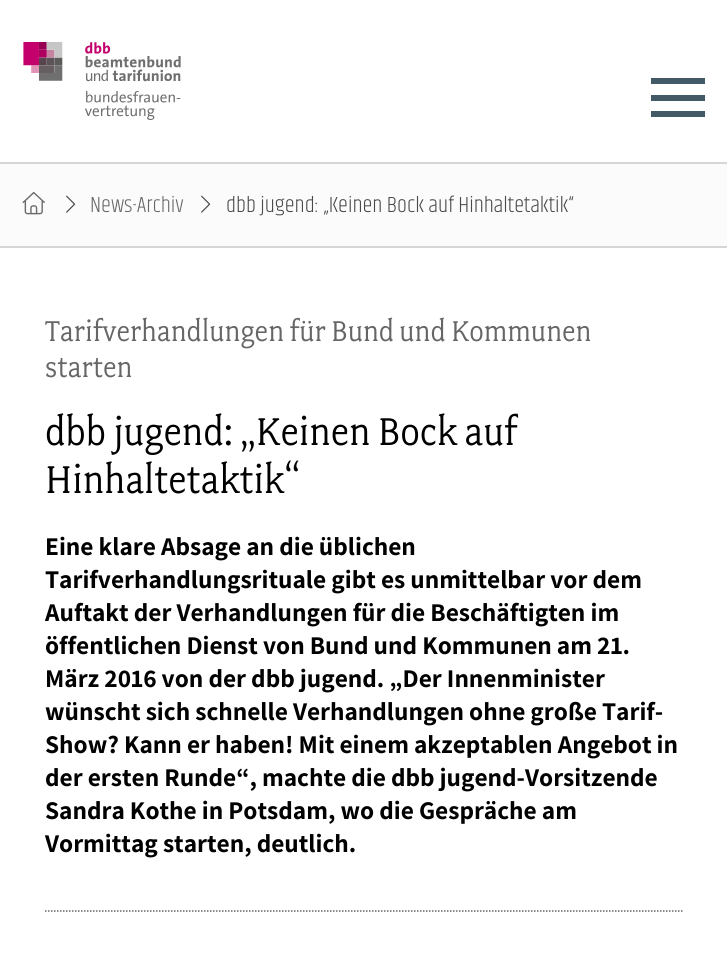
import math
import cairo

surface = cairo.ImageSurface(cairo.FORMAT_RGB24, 727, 965)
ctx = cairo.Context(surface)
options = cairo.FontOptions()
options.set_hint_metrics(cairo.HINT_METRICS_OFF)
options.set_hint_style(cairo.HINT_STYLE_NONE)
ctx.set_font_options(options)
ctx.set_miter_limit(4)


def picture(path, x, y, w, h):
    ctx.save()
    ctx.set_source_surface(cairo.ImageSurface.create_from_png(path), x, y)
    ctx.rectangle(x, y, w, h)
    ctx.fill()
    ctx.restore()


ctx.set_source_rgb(1, 1, 1)
ctx.paint()
ctx.set_source_rgb(0.839, 0.839, 0.839)
ctx.rectangle(0, 162, 727, 2)
ctx.fill()
picture("img1.png", 23, 42, 158, 78)
ctx.set_source_rgb(0.255, 0.353, 0.396)
ctx.rectangle(651, 78, 54, 6)
ctx.fill()
ctx.rectangle(651, 95, 54, 6)
ctx.fill()
ctx.rectangle(651, 111, 54, 6)
ctx.fill()
ctx.set_source_rgb(0.984, 0.984, 0.984)
ctx.rectangle(0, 164, 727, 82)
ctx.fill()
ctx.set_source_rgb(0.839, 0.839, 0.839)
ctx.rectangle(0, 246, 727, 2)
ctx.fill()
picture("img2.png", 22, 191, 23, 24)
picture("img3.png", 66, 195, 10, 18)
ctx.select_font_face("Khand Light")
ctx.set_font_size(22.5)
ctx.set_source_rgb(0.4, 0.4, 0.4)
ctx.move_to(90, 212)
ctx.show_text("News-Archiv")
picture("img3.png", 201, 195, 10, 18)
ctx.set_source_rgb(0.286, 0.286, 0.286)
ctx.move_to(226, 212)
ctx.show_text("dbb jugend: „Keinen Bock auf Hinhaltetaktik“")
ctx.select_font_face("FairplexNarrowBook")
ctx.set_font_size(32.1)
ctx.set_source_rgb(0.4, 0.4, 0.4)
ctx.move_to(45, 341)
ctx.show_text("Tarifverhandlungen für Bund und Kommunen")
ctx.move_to(45, 377)
ctx.show_text("starten")
ctx.set_font_size(43.4)
ctx.set_source_rgb(0, 0, 0)
ctx.move_to(45, 445)
ctx.show_text("dbb jugend: „Keinen Bock auf")
ctx.move_to(45, 493)
ctx.show_text("Hinhaltetaktik“")
ctx.select_font_face("Assistant", cairo.FONT_SLANT_NORMAL, cairo.FONT_WEIGHT_BOLD)
ctx.set_font_size(25.5)
ctx.move_to(45, 555)
ctx.show_text("Eine klare Absage an die üblichen")
ctx.move_to(45, 588)
ctx.show_text("Tarifverhandlungsrituale gibt es unmittelbar vor dem")
ctx.move_to(45, 621)
ctx.show_text("Auftakt der Verhandlungen für die Beschäftigten im")
ctx.move_to(45, 654)
ctx.show_text("öffentlichen Dienst von Bund und Kommunen am 21.")
ctx.move_to(45, 687)
ctx.show_text("März 2016 von der dbb jugend. „Der Innenminister")
ctx.move_to(45, 720)
ctx.show_text("wünscht sich schnelle Verhandlungen ohne große Tarif-")
ctx.move_to(45, 753)
ctx.show_text("Show? Kann er haben! Mit einem akzeptablen Angebot in")
ctx.move_to(45, 786)
ctx.show_text("der ersten Runde“, machte die dbb jugend-Vorsitzende")
ctx.move_to(45, 819)
ctx.show_text("Sandra Kothe in Potsdam, wo die Gespräche am")
ctx.move_to(45, 852)
ctx.show_text("Vormittag starten, deutlich.")
ctx.new_path()
ctx.move_to(45, 911)
ctx.line_to(682.5, 911)
ctx.set_source_rgb(0.4, 0.4, 0.4)
ctx.set_line_width(1.5)
ctx.set_dash([1.5, 1.5])
ctx.stroke()
surface.write_to_png("page.png")
